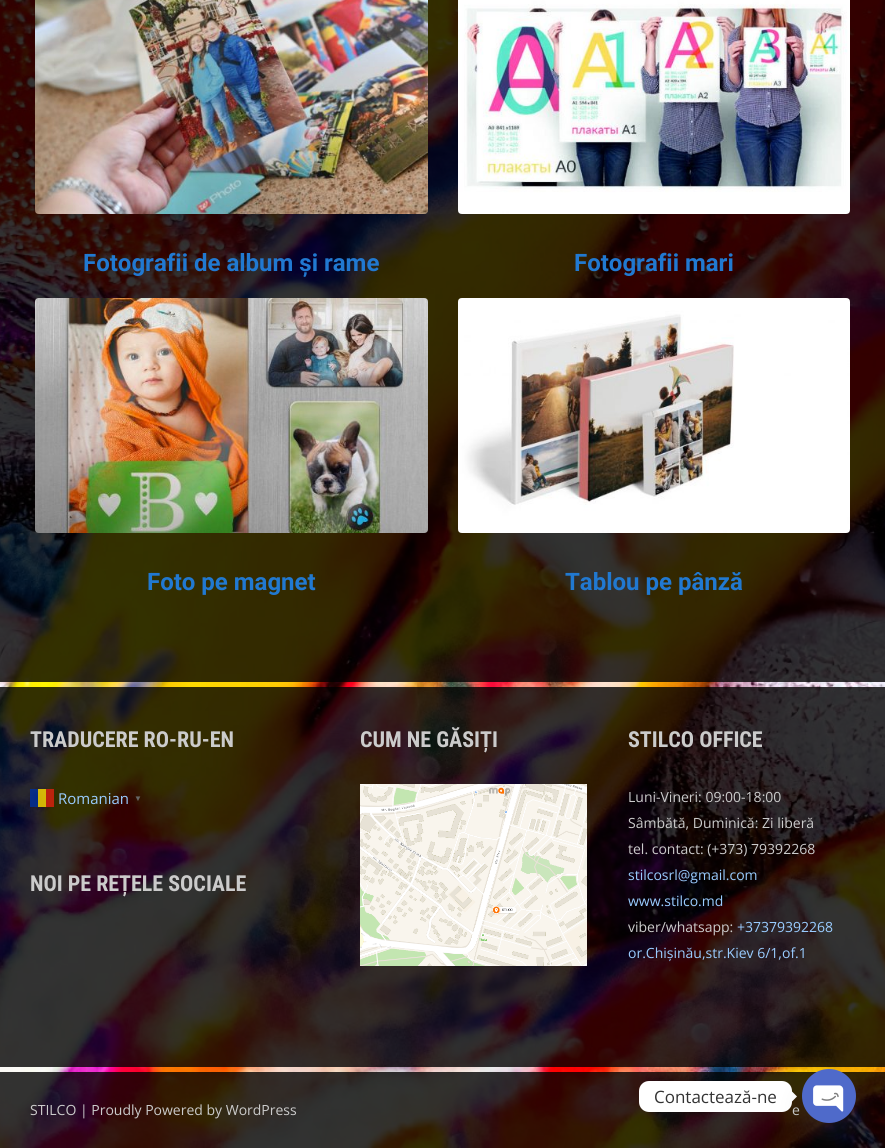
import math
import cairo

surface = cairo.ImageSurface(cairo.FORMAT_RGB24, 885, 1148)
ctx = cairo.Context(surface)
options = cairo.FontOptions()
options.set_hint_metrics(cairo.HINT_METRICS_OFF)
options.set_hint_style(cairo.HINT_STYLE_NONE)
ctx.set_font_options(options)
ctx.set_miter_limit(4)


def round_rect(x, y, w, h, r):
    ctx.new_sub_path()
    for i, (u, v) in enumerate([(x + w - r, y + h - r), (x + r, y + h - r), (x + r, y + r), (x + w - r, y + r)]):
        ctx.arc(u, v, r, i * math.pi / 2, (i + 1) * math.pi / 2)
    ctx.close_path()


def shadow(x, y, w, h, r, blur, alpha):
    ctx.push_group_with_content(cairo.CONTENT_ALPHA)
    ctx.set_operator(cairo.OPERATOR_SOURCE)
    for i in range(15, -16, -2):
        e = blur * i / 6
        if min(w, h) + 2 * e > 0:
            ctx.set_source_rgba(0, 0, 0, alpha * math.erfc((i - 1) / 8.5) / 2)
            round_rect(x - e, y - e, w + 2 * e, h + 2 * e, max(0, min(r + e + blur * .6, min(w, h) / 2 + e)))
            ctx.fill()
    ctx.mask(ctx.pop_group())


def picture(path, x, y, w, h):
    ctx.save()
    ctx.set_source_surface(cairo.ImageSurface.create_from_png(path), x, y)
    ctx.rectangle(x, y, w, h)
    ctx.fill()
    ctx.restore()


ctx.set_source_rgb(1, 1, 1)
ctx.paint()
picture("img1.png", 0, 0, 885, 1148)
ctx.set_source_rgba(0, 0, 0, 0.8)
ctx.rectangle(0, 0, 885, 682)
ctx.fill()
picture("img2.png", 35, 0, 393, 214)
ctx.select_font_face("Roboto", cairo.FONT_SLANT_NORMAL, cairo.FONT_WEIGHT_BOLD)
ctx.set_font_size(24)
ctx.set_source_rgb(0.129, 0.475, 0.82)
ctx.move_to(83, 271)
ctx.show_text("Fotografii de album și rame")
picture("img3.png", 458, 0, 392, 214)
ctx.move_to(574, 271)
ctx.show_text("Fotografii mari")
picture("img4.png", 35, 298, 393, 235)
ctx.move_to(147, 590)
ctx.show_text("Foto pe magnet")
picture("img5.png", 458, 298, 392, 235)
ctx.move_to(565, 590)
ctx.show_text("Tablou pe pânză")
ctx.set_source_rgba(0, 0, 0, 0.8)
ctx.rectangle(0, 687, 885, 380)
ctx.fill()
ctx.select_font_face("Roboto Condensed", cairo.FONT_SLANT_NORMAL, cairo.FONT_WEIGHT_BOLD)
ctx.set_font_size(22)
ctx.set_source_rgb(0.796, 0.796, 0.796)
ctx.move_to(30, 747)
ctx.show_text("TRADUCERE RO-RU-EN")
ctx.select_font_face("Open Sans")
ctx.set_font_size(15)
ctx.set_source_rgb(0.6, 0.8, 1)
ctx.move_to(58, 804)
ctx.show_text("Romanian")
ctx.set_source_rgba(0, 0.192, 0.612, 0.8)
ctx.rectangle(30, 789, 8, 18)
ctx.fill()
ctx.set_source_rgba(1, 0.871, 0, 0.8)
ctx.rectangle(38, 789, 8, 18)
ctx.fill()
ctx.set_source_rgba(0.871, 0.129, 0.063, 0.8)
ctx.rectangle(46, 789, 8, 18)
ctx.fill()
ctx.select_font_face("Liberation Sans", cairo.FONT_SLANT_NORMAL, cairo.FONT_WEIGHT_BOLD)
ctx.set_font_size(8)
ctx.set_source_rgb(0.4, 0.4, 0.4)
ctx.move_to(134, 801)
ctx.show_text("▼")
ctx.select_font_face("Roboto Condensed", cairo.FONT_SLANT_NORMAL, cairo.FONT_WEIGHT_BOLD)
ctx.set_font_size(22)
ctx.set_source_rgb(0.796, 0.796, 0.796)
ctx.move_to(30, 891)
ctx.show_text("NOI PE REȚELE SOCIALE")
ctx.move_to(360, 747)
ctx.show_text("CUM NE GĂSIȚI")
picture("img6.png", 360, 784, 227, 182)
ctx.move_to(628, 747)
ctx.show_text("STILCO OFFICE")
ctx.select_font_face("Open Sans")
ctx.set_font_size(14)
ctx.move_to(628, 802)
ctx.show_text("Luni-Vineri: 09:00-18:00")
ctx.move_to(628, 828)
ctx.show_text("Sâmbătă, Duminică: Zi liberă")
ctx.move_to(628, 854)
ctx.show_text("tel. contact: (+373) 79392268")
ctx.set_source_rgb(0.6, 0.8, 1)
ctx.move_to(628, 880)
ctx.show_text("stilcosrl@gmail.com")
ctx.move_to(628, 906)
ctx.show_text("www.stilco.md")
ctx.set_source_rgb(0.796, 0.796, 0.796)
ctx.move_to(628, 932)
ctx.show_text("viber/whatsapp:")
ctx.set_source_rgb(0.6, 0.8, 1)
ctx.move_to(737, 932)
ctx.show_text("+37379392268")
ctx.move_to(628, 958)
ctx.show_text("or.Chișinău,str.Kiev 6/1,of.1")
ctx.set_source_rgba(0, 0, 0, 0.8)
ctx.rectangle(0, 1072, 885, 76)
ctx.fill()
ctx.set_source_rgb(0.796, 0.796, 0.796)
ctx.move_to(30, 1115)
ctx.show_text("STILCO | Proudly Powered by WordPress")
ctx.move_to(792, 1115)
ctx.show_text("e")
ctx.set_source_rgb(1, 1, 1)
round_rect(639, 1081, 153, 31, 10)
ctx.fill()
ctx.set_font_size(17)
ctx.set_source_rgb(0.2, 0.2, 0.2)
ctx.move_to(654, 1103)
ctx.show_text("Contactează-ne")
ctx.set_source_rgb(1, 1, 1)
ctx.new_path()
ctx.move_to(792, 1101.5)
ctx.line_to(792, 1091.5)
ctx.line_to(797, 1096.5)
ctx.close_path()
ctx.fill()
ctx.set_source_rgb(0.286, 0.408, 0.494)
shadow(802, 1085, 54, 54, 27, 12, 0.16)
picture("img7.png", 802, 1069, 54, 54)
surface.write_to_png("page.png")
